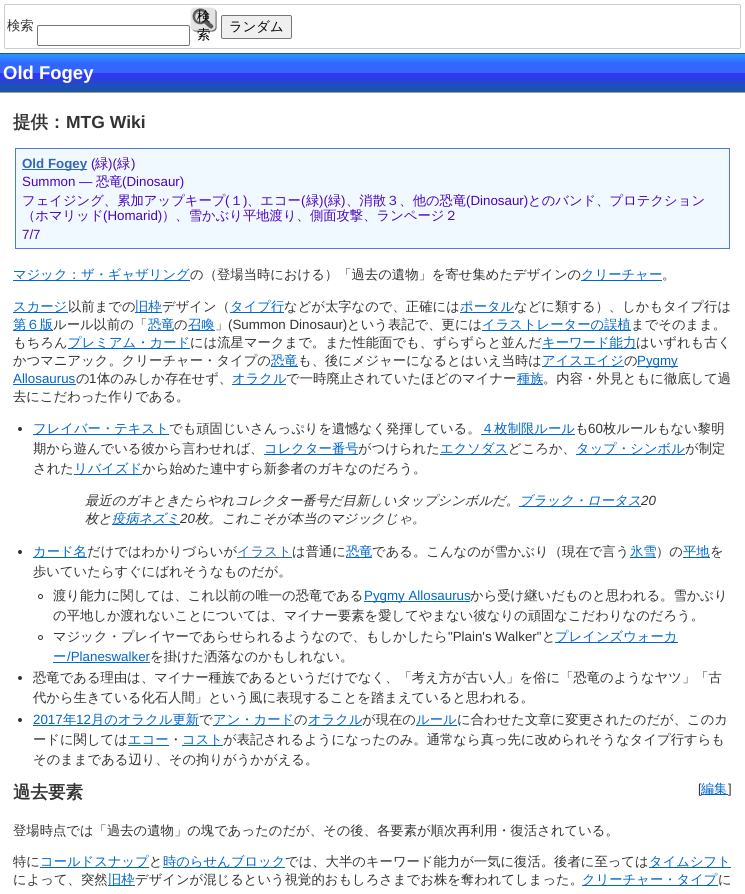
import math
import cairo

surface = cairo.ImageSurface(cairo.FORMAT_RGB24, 745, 894)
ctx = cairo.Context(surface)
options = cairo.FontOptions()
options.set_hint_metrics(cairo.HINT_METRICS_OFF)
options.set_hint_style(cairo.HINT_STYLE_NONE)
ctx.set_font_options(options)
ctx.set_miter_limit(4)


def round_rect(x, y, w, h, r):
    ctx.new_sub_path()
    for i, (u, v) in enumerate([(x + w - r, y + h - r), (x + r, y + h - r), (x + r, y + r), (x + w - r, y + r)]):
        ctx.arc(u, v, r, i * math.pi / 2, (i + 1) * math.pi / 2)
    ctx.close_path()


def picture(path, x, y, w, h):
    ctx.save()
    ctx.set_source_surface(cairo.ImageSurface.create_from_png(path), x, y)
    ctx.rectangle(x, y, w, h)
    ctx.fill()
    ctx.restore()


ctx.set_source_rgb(1, 1, 1)
ctx.paint()
round_rect(4.5, 4.5, 736, 44, 1.5)
ctx.set_source_rgb(0.8, 0.8, 0.8)
ctx.set_line_width(1)
ctx.stroke()
ctx.select_font_face("WenQuanYi Zen Hei Medium")
ctx.set_font_size(13.33)
ctx.set_source_rgb(0.2, 0.2, 0.2)
ctx.move_to(7, 30)
ctx.show_text("検索")
round_rect(37.5, 25.5, 152, 20, 1.5)
ctx.set_source_rgb(0.463, 0.463, 0.463)
ctx.stroke()
picture("img1.png", 190, 7, 27, 25)
ctx.set_source_rgb(0, 0, 0)
ctx.move_to(197, 21)
ctx.show_text("検")
ctx.move_to(197, 39)
ctx.show_text("索")
ctx.set_source_rgb(0.937, 0.937, 0.937)
round_rect(221.5, 15.5, 70, 23, 1.5)
ctx.fill_preserve()
ctx.set_source_rgb(0.463, 0.463, 0.463)
ctx.stroke()
ctx.set_source_rgb(0, 0, 0)
ctx.move_to(229, 31)
ctx.show_text("ランダム")
gradient = cairo.LinearGradient(0, 54, 0, 92)
gradient.add_color_stop_rgba(0, 0.153, 0.584, 1, 1)
gradient.add_color_stop_rgba(0.02, 0.153, 0.584, 1, 1)
gradient.add_color_stop_rgba(0.25, 0.2, 0.4, 1, 1)
gradient.add_color_stop_rgba(0.5, 0.2, 0.4, 1, 1)
gradient.add_color_stop_rgba(0.5, 0.2, 0.2, 1, 1)
gradient.add_color_stop_rgba(1, 0.094, 0.353, 0.62, 1)
ctx.set_source(gradient)
ctx.rectangle(0, 54, 745, 38)
ctx.fill()
ctx.set_source_rgb(0.094, 0.353, 0.62)
ctx.rectangle(0, 53, 745, 1)
ctx.fill()
ctx.set_source_rgb(0.6, 0.6, 0.6)
ctx.rectangle(0, 92, 745, 1)
ctx.fill()
ctx.select_font_face("Liberation Sans", cairo.FONT_SLANT_NORMAL, cairo.FONT_WEIGHT_BOLD)
ctx.set_font_size(18.5)
ctx.set_source_rgb(1, 1, 1)
ctx.move_to(3, 79)
ctx.show_text("Old Fogey")
ctx.select_font_face("WenQuanYi Zen Hei", cairo.FONT_SLANT_NORMAL, cairo.FONT_WEIGHT_BOLD)
ctx.set_font_size(17.5)
ctx.set_source_rgb(0.2, 0.2, 0.2)
ctx.move_to(13, 128)
ctx.show_text("提供：")
ctx.select_font_face("Liberation Sans", cairo.FONT_SLANT_NORMAL, cairo.FONT_WEIGHT_BOLD)
ctx.move_to(66, 128)
ctx.show_text("MTG Wiki")
ctx.set_source_rgb(0.941, 0.973, 1)
ctx.rectangle(15.5, 148.5, 714, 100)
ctx.fill_preserve()
ctx.set_source_rgb(0.325, 0.478, 0.843)
ctx.stroke()
ctx.set_source_rgb(0.2, 0.4, 0.733)
ctx.rectangle(22, 169, 65, 1)
ctx.fill()
ctx.set_font_size(13.33)
ctx.move_to(22, 168)
ctx.show_text("Old Fogey")
ctx.select_font_face("Liberation Sans")
ctx.set_source_rgb(0.29, 0.008, 0.757)
ctx.move_to(91, 168)
ctx.show_text("(")
ctx.select_font_face("WenQuanYi Zen Hei Medium")
ctx.move_to(95, 168)
ctx.show_text("緑")
ctx.select_font_face("Liberation Sans")
ctx.move_to(108, 168)
ctx.show_text(")(")
ctx.select_font_face("WenQuanYi Zen Hei Medium")
ctx.move_to(117, 168)
ctx.show_text("緑")
ctx.select_font_face("Liberation Sans")
ctx.move_to(131, 168)
ctx.show_text(")")
ctx.move_to(22, 186)
ctx.show_text("Summon —")
ctx.select_font_face("WenQuanYi Zen Hei Medium")
ctx.move_to(96, 186)
ctx.show_text("恐竜")
ctx.select_font_face("Liberation Sans")
ctx.move_to(122, 186)
ctx.show_text("(Dinosaur)")
ctx.select_font_face("WenQuanYi Zen Hei Medium")
ctx.move_to(22, 205)
ctx.show_text("フェイジング、累加アップキープ")
ctx.select_font_face("Liberation Sans")
ctx.move_to(225, 205)
ctx.show_text("(")
ctx.select_font_face("WenQuanYi Zen Hei Medium")
ctx.move_to(230, 205)
ctx.show_text("１")
ctx.select_font_face("Liberation Sans")
ctx.move_to(243, 205)
ctx.show_text(")")
ctx.select_font_face("WenQuanYi Zen Hei Medium")
ctx.move_to(247, 205)
ctx.show_text("、エコー")
ctx.select_font_face("Liberation Sans")
ctx.move_to(301, 205)
ctx.show_text("(")
ctx.select_font_face("WenQuanYi Zen Hei Medium")
ctx.move_to(306, 205)
ctx.show_text("緑")
ctx.select_font_face("Liberation Sans")
ctx.move_to(319, 205)
ctx.show_text(")(")
ctx.select_font_face("WenQuanYi Zen Hei Medium")
ctx.move_to(328, 205)
ctx.show_text("緑")
ctx.select_font_face("Liberation Sans")
ctx.move_to(341, 205)
ctx.show_text(")")
ctx.select_font_face("WenQuanYi Zen Hei Medium")
ctx.move_to(346, 205)
ctx.show_text("、消散３、他の恐竜")
ctx.select_font_face("Liberation Sans")
ctx.move_to(466, 205)
ctx.show_text("(Dinosaur)")
ctx.select_font_face("WenQuanYi Zen Hei Medium")
ctx.move_to(528, 205)
ctx.show_text("とのバンド、プロテクション")
ctx.move_to(22, 220)
ctx.show_text("（ホマリッド")
ctx.select_font_face("Liberation Sans")
ctx.move_to(103, 220)
ctx.show_text("(Homarid)")
ctx.select_font_face("WenQuanYi Zen Hei Medium")
ctx.move_to(162, 220)
ctx.show_text("）、雪かぶり平地渡り、側面攻撃、ランページ２")
ctx.select_font_face("Liberation Sans")
ctx.move_to(22, 239)
ctx.show_text("7/7")
ctx.set_source_rgb(0, 0.4, 0.8)
ctx.rectangle(13, 280, 177, 1)
ctx.fill()
ctx.select_font_face("WenQuanYi Zen Hei Medium")
ctx.move_to(13, 279)
ctx.show_text("マジック：ザ・ギャザリング")
ctx.set_source_rgb(0.2, 0.2, 0.2)
ctx.move_to(190, 279)
ctx.show_text("の（登場当時における）「過去の遺物」を寄せ集めたデザインの")
ctx.set_source_rgb(0, 0.4, 0.8)
ctx.rectangle(581, 280, 81, 1)
ctx.fill()
ctx.move_to(581, 279)
ctx.show_text("クリーチャー")
ctx.set_source_rgb(0.2, 0.2, 0.2)
ctx.move_to(662, 279)
ctx.show_text("。")
ctx.set_source_rgb(0, 0.4, 0.8)
ctx.rectangle(13, 312, 55, 1)
ctx.fill()
ctx.move_to(13, 311)
ctx.show_text("スカージ")
ctx.set_source_rgb(0.2, 0.2, 0.2)
ctx.move_to(68, 311)
ctx.show_text("以前までの")
ctx.set_source_rgb(0, 0.4, 0.8)
ctx.rectangle(135, 312, 27, 1)
ctx.fill()
ctx.move_to(135, 311)
ctx.show_text("旧枠")
ctx.set_source_rgb(0.2, 0.2, 0.2)
ctx.move_to(162, 311)
ctx.show_text("デザイン（")
ctx.set_source_rgb(0, 0.4, 0.8)
ctx.rectangle(230, 312, 54, 1)
ctx.fill()
ctx.move_to(230, 311)
ctx.show_text("タイプ行")
ctx.set_source_rgb(0.2, 0.2, 0.2)
ctx.move_to(284, 311)
ctx.show_text("などが太字なので、正確には")
ctx.set_source_rgb(0, 0.4, 0.8)
ctx.rectangle(460, 312, 54, 1)
ctx.fill()
ctx.move_to(460, 311)
ctx.show_text("ポータル")
ctx.set_source_rgb(0.2, 0.2, 0.2)
ctx.move_to(514, 311)
ctx.show_text("などに類する）、しかもタイプ行は")
ctx.set_source_rgb(0, 0.4, 0.8)
ctx.rectangle(13, 330, 40, 1)
ctx.fill()
ctx.move_to(13, 329)
ctx.show_text("第６版")
ctx.set_source_rgb(0.2, 0.2, 0.2)
ctx.move_to(53, 329)
ctx.show_text("ルール以前の「")
ctx.set_source_rgb(0, 0.4, 0.8)
ctx.rectangle(148, 330, 26, 1)
ctx.fill()
ctx.move_to(148, 329)
ctx.show_text("恐竜")
ctx.set_source_rgb(0.2, 0.2, 0.2)
ctx.move_to(174, 329)
ctx.show_text("の")
ctx.set_source_rgb(0, 0.4, 0.8)
ctx.rectangle(188, 330, 27, 1)
ctx.fill()
ctx.move_to(188, 329)
ctx.show_text("召喚")
ctx.set_source_rgb(0.2, 0.2, 0.2)
ctx.move_to(215, 329)
ctx.show_text("」")
ctx.select_font_face("Liberation Sans")
ctx.move_to(228, 329)
ctx.show_text("(Summon Dinosaur)")
ctx.select_font_face("WenQuanYi Zen Hei Medium")
ctx.move_to(347, 329)
ctx.show_text("という表記で、更には")
ctx.set_source_rgb(0, 0.4, 0.8)
ctx.rectangle(482, 330, 149, 1)
ctx.fill()
ctx.move_to(482, 329)
ctx.show_text("イラストレーターの誤植")
ctx.set_source_rgb(0.2, 0.2, 0.2)
ctx.move_to(631, 329)
ctx.show_text("までそのまま。")
ctx.move_to(13, 347)
ctx.show_text("もちろん")
ctx.set_source_rgb(0, 0.4, 0.8)
ctx.rectangle(68, 348, 122, 1)
ctx.fill()
ctx.move_to(68, 347)
ctx.show_text("プレミアム・カード")
ctx.set_source_rgb(0.2, 0.2, 0.2)
ctx.move_to(190, 347)
ctx.show_text("には流星マークまで。また性能面でも、ずらずらと並んだ")
ctx.set_source_rgb(0, 0.4, 0.8)
ctx.rectangle(542, 348, 94, 1)
ctx.fill()
ctx.move_to(542, 347)
ctx.show_text("キーワード能力")
ctx.set_source_rgb(0.2, 0.2, 0.2)
ctx.move_to(636, 347)
ctx.show_text("はいずれも古く")
ctx.move_to(13, 365)
ctx.show_text("かつマニアック。クリーチャー・タイプの")
ctx.set_source_rgb(0, 0.4, 0.8)
ctx.rectangle(271, 366, 27, 1)
ctx.fill()
ctx.move_to(271, 365)
ctx.show_text("恐竜")
ctx.set_source_rgb(0.2, 0.2, 0.2)
ctx.move_to(298, 365)
ctx.show_text("も、後にメジャーになるとはいえ当時は")
ctx.set_source_rgb(0, 0.4, 0.8)
ctx.rectangle(542, 366, 82, 1)
ctx.fill()
ctx.move_to(542, 365)
ctx.show_text("アイスエイジ")
ctx.set_source_rgb(0.2, 0.2, 0.2)
ctx.move_to(624, 365)
ctx.show_text("の")
ctx.set_source_rgb(0, 0.4, 0.8)
ctx.rectangle(637, 366, 41, 1)
ctx.fill()
ctx.select_font_face("Liberation Sans")
ctx.move_to(637, 365)
ctx.show_text("Pygmy")
ctx.move_to(13, 383)
ctx.show_text("Allosaurus")
ctx.rectangle(13, 384, 63, 1)
ctx.fill()
ctx.select_font_face("WenQuanYi Zen Hei Medium")
ctx.set_source_rgb(0.2, 0.2, 0.2)
ctx.move_to(76, 383)
ctx.show_text("の")
ctx.select_font_face("Liberation Sans")
ctx.move_to(89, 383)
ctx.show_text("1")
ctx.select_font_face("WenQuanYi Zen Hei Medium")
ctx.move_to(97, 383)
ctx.show_text("体のみしか存在せず、")
ctx.set_source_rgb(0, 0.4, 0.8)
ctx.rectangle(232, 384, 54, 1)
ctx.fill()
ctx.move_to(232, 383)
ctx.show_text("オラクル")
ctx.set_source_rgb(0.2, 0.2, 0.2)
ctx.move_to(286, 383)
ctx.show_text("で一時廃止されていたほどのマイナー")
ctx.set_source_rgb(0, 0.4, 0.8)
ctx.rectangle(517, 384, 26, 1)
ctx.fill()
ctx.move_to(517, 383)
ctx.show_text("種族")
ctx.set_source_rgb(0.2, 0.2, 0.2)
ctx.move_to(543, 383)
ctx.show_text("。内容・外見ともに徹底して過")
ctx.move_to(13, 401)
ctx.show_text("去にこだわった作りである。")
ctx.new_path()
ctx.arc(20, 429, 2, 0, 2 * math.pi)
ctx.fill()
ctx.set_source_rgb(0, 0.4, 0.8)
ctx.rectangle(33, 434, 136, 1)
ctx.fill()
ctx.move_to(33, 433)
ctx.show_text("フレイバー・テキスト")
ctx.set_source_rgb(0.2, 0.2, 0.2)
ctx.move_to(169, 433)
ctx.show_text("でも頑固じいさんっぷりを遺憾なく発揮している。")
ctx.set_source_rgb(0, 0.4, 0.8)
ctx.rectangle(481, 434, 94, 1)
ctx.fill()
ctx.move_to(481, 433)
ctx.show_text("４枚制限ルール")
ctx.set_source_rgb(0.2, 0.2, 0.2)
ctx.move_to(575, 433)
ctx.show_text("も")
ctx.select_font_face("Liberation Sans")
ctx.move_to(588, 433)
ctx.show_text("60")
ctx.select_font_face("WenQuanYi Zen Hei Medium")
ctx.move_to(603, 433)
ctx.show_text("枚ルールもない黎明")
ctx.move_to(33, 453)
ctx.show_text("期から遊んでいる彼から言わせれば、")
ctx.set_source_rgb(0, 0.4, 0.8)
ctx.rectangle(264, 454, 94, 1)
ctx.fill()
ctx.move_to(264, 453)
ctx.show_text("コレクター番号")
ctx.set_source_rgb(0.2, 0.2, 0.2)
ctx.move_to(358, 453)
ctx.show_text("がつけられた")
ctx.set_source_rgb(0, 0.4, 0.8)
ctx.rectangle(440, 454, 68, 1)
ctx.fill()
ctx.move_to(440, 453)
ctx.show_text("エクソダス")
ctx.set_source_rgb(0.2, 0.2, 0.2)
ctx.move_to(508, 453)
ctx.show_text("どころか、")
ctx.set_source_rgb(0, 0.4, 0.8)
ctx.rectangle(576, 454, 109, 1)
ctx.fill()
ctx.move_to(576, 453)
ctx.show_text("タップ・シンボル")
ctx.set_source_rgb(0.2, 0.2, 0.2)
ctx.move_to(685, 453)
ctx.show_text("が制定")
ctx.move_to(33, 473)
ctx.show_text("された")
ctx.set_source_rgb(0, 0.4, 0.8)
ctx.rectangle(74, 474, 68, 1)
ctx.fill()
ctx.move_to(74, 473)
ctx.show_text("リバイズド")
ctx.set_source_rgb(0.2, 0.2, 0.2)
ctx.move_to(142, 473)
ctx.show_text("から始めた連中すら新参者のガキなのだろう。")
ctx.select_font_face("WenQuanYi Zen Hei Medium", cairo.FONT_SLANT_ITALIC)
ctx.move_to(85, 505)
ctx.show_text("最近のガキときたらやれコレクター番号だ目新しいタップシンボルだ。")
ctx.set_source_rgb(0, 0.4, 0.8)
ctx.rectangle(519, 506, 122, 1)
ctx.fill()
ctx.move_to(519, 505)
ctx.show_text("ブラック・ロータス")
ctx.select_font_face("Liberation Sans", cairo.FONT_SLANT_ITALIC)
ctx.set_source_rgb(0.2, 0.2, 0.2)
ctx.move_to(641, 505)
ctx.show_text("20")
ctx.select_font_face("WenQuanYi Zen Hei Medium", cairo.FONT_SLANT_ITALIC)
ctx.move_to(85, 523)
ctx.show_text("枚と")
ctx.set_source_rgb(0, 0.4, 0.8)
ctx.rectangle(112, 524, 68, 1)
ctx.fill()
ctx.move_to(112, 523)
ctx.show_text("疫病ネズミ")
ctx.select_font_face("Liberation Sans", cairo.FONT_SLANT_ITALIC)
ctx.set_source_rgb(0.2, 0.2, 0.2)
ctx.move_to(180, 523)
ctx.show_text("20")
ctx.select_font_face("WenQuanYi Zen Hei Medium", cairo.FONT_SLANT_ITALIC)
ctx.move_to(195, 523)
ctx.show_text("枚。これこそが本当のマジックじゃ。")
ctx.new_path()
ctx.arc(20, 552, 2, 0, 2 * math.pi)
ctx.fill()
ctx.set_source_rgb(0, 0.4, 0.8)
ctx.rectangle(33, 557, 54, 1)
ctx.fill()
ctx.select_font_face("WenQuanYi Zen Hei Medium")
ctx.move_to(33, 556)
ctx.show_text("カード名")
ctx.set_source_rgb(0.2, 0.2, 0.2)
ctx.move_to(87, 556)
ctx.show_text("だけではわかりづらいが")
ctx.set_source_rgb(0.2, 0.4, 0.733)
ctx.rectangle(237, 557, 55, 1)
ctx.fill()
ctx.move_to(237, 556)
ctx.show_text("イラスト")
ctx.set_source_rgb(0.2, 0.2, 0.2)
ctx.move_to(292, 556)
ctx.show_text("は普通に")
ctx.set_source_rgb(0, 0.4, 0.8)
ctx.rectangle(346, 557, 26, 1)
ctx.fill()
ctx.move_to(346, 556)
ctx.show_text("恐竜")
ctx.set_source_rgb(0.2, 0.2, 0.2)
ctx.move_to(372, 556)
ctx.show_text("である。こんなのが雪かぶり（現在で言う")
ctx.set_source_rgb(0, 0.4, 0.8)
ctx.rectangle(630, 557, 26, 1)
ctx.fill()
ctx.move_to(630, 556)
ctx.show_text("氷雪")
ctx.set_source_rgb(0.2, 0.2, 0.2)
ctx.move_to(656, 556)
ctx.show_text("）の")
ctx.set_source_rgb(0, 0.4, 0.8)
ctx.rectangle(683, 557, 27, 1)
ctx.fill()
ctx.move_to(683, 556)
ctx.show_text("平地")
ctx.set_source_rgb(0.2, 0.2, 0.2)
ctx.move_to(710, 556)
ctx.show_text("を")
ctx.move_to(33, 576)
ctx.show_text("歩いていたらすぐにばれそうなものだが。")
ctx.new_path()
ctx.arc(40.5, 596.5, 2, 0, 2 * math.pi)
ctx.stroke()
ctx.move_to(53, 600)
ctx.show_text("渡り能力に関しては、これ以前の唯一の恐竜である")
ctx.set_source_rgb(0, 0.4, 0.8)
ctx.rectangle(364, 601, 106, 1)
ctx.fill()
ctx.select_font_face("Liberation Sans")
ctx.move_to(364, 600)
ctx.show_text("Pygmy Allosaurus")
ctx.select_font_face("WenQuanYi Zen Hei Medium")
ctx.set_source_rgb(0.2, 0.2, 0.2)
ctx.move_to(470, 600)
ctx.show_text("から受け継いだものと思われる。雪かぶり")
ctx.move_to(53, 620)
ctx.show_text("の平地しか渡れないことについては、マイナー要素を愛してやまない彼なりの頑固なこだわりなのだろう。")
ctx.new_path()
ctx.arc(40.5, 637.5, 2, 0, 2 * math.pi)
ctx.stroke()
ctx.move_to(53, 641)
ctx.show_text("マジック・プレイヤーであらせられるようなので、もしかしたら")
ctx.select_font_face("Liberation Sans")
ctx.move_to(448, 641)
ctx.show_text("\"Plain's Walker\"")
ctx.select_font_face("WenQuanYi Zen Hei Medium")
ctx.move_to(542, 641)
ctx.show_text("と")
ctx.set_source_rgb(0, 0.4, 0.8)
ctx.rectangle(555, 642, 123, 1)
ctx.fill()
ctx.move_to(555, 641)
ctx.show_text("プレインズウォーカ")
ctx.move_to(53, 661)
ctx.show_text("ー")
ctx.select_font_face("Liberation Sans")
ctx.move_to(67, 661)
ctx.show_text("/Planeswalker")
ctx.rectangle(53, 662, 97, 1)
ctx.fill()
ctx.select_font_face("WenQuanYi Zen Hei Medium")
ctx.set_source_rgb(0.2, 0.2, 0.2)
ctx.move_to(150, 661)
ctx.show_text("を掛けた洒落なのかもしれない。")
ctx.new_path()
ctx.arc(20, 678, 2, 0, 2 * math.pi)
ctx.fill()
ctx.move_to(33, 682)
ctx.show_text("恐竜である理由は、マイナー種族であるというだけでなく、「考え方が古い人」を俗に「恐竜のようなヤツ」「古")
ctx.move_to(33, 702)
ctx.show_text("代から生きている化石人間」という風に表現することを踏まえていると思われる。")
ctx.new_path()
ctx.arc(20, 720, 2, 0, 2 * math.pi)
ctx.fill()
ctx.select_font_face("Liberation Sans")
ctx.set_source_rgb(0, 0.4, 0.8)
ctx.move_to(33, 724)
ctx.show_text("2017")
ctx.rectangle(33, 725, 166, 1)
ctx.fill()
ctx.select_font_face("WenQuanYi Zen Hei Medium")
ctx.move_to(63, 724)
ctx.show_text("年")
ctx.select_font_face("Liberation Sans")
ctx.move_to(76, 724)
ctx.show_text("12")
ctx.select_font_face("WenQuanYi Zen Hei Medium")
ctx.move_to(91, 724)
ctx.show_text("月のオラクル更新")
ctx.set_source_rgb(0.2, 0.2, 0.2)
ctx.move_to(199, 724)
ctx.show_text("で")
ctx.set_source_rgb(0, 0.4, 0.8)
ctx.rectangle(213, 725, 81, 1)
ctx.fill()
ctx.move_to(213, 724)
ctx.show_text("アン・カード")
ctx.set_source_rgb(0.2, 0.2, 0.2)
ctx.move_to(294, 724)
ctx.show_text("の")
ctx.set_source_rgb(0, 0.4, 0.8)
ctx.rectangle(308, 725, 54, 1)
ctx.fill()
ctx.move_to(308, 724)
ctx.show_text("オラクル")
ctx.set_source_rgb(0.2, 0.2, 0.2)
ctx.move_to(362, 724)
ctx.show_text("が現在の")
ctx.set_source_rgb(0, 0.4, 0.8)
ctx.move_to(416, 724)
ctx.show_text("ルール")
ctx.rectangle(416, 725, 41, 1)
ctx.fill()
ctx.set_source_rgb(0.2, 0.2, 0.2)
ctx.move_to(457, 724)
ctx.show_text("に合わせた文章に変更されたのだが、このカ")
ctx.move_to(33, 744)
ctx.show_text("ードに関しては")
ctx.set_source_rgb(0, 0.4, 0.8)
ctx.move_to(128, 744)
ctx.show_text("エコー")
ctx.rectangle(128, 745, 41, 1)
ctx.fill()
ctx.set_source_rgb(0.2, 0.2, 0.2)
ctx.move_to(169, 744)
ctx.show_text("・")
ctx.set_source_rgb(0, 0.4, 0.8)
ctx.rectangle(182, 745, 41, 1)
ctx.fill()
ctx.move_to(182, 744)
ctx.show_text("コスト")
ctx.set_source_rgb(0.2, 0.2, 0.2)
ctx.move_to(223, 744)
ctx.show_text("が表記されるようになったのみ。通常なら真っ先に改められそうなタイプ行すらも")
ctx.move_to(33, 764)
ctx.show_text("そのままである辺り、その拘りがうかがえる。")
ctx.select_font_face("WenQuanYi Zen Hei", cairo.FONT_SLANT_NORMAL, cairo.FONT_WEIGHT_BOLD)
ctx.set_font_size(17.5)
ctx.move_to(13, 798)
ctx.show_text("過去要素")
ctx.select_font_face("Liberation Sans")
ctx.set_font_size(13)
ctx.move_to(698, 793)
ctx.show_text("[")
ctx.set_source_rgb(0, 0.4, 0.8)
ctx.rectangle(701, 794, 27, 1)
ctx.fill()
ctx.select_font_face("WenQuanYi Zen Hei Medium")
ctx.move_to(701, 793)
ctx.show_text("編集")
ctx.select_font_face("Liberation Sans")
ctx.set_source_rgb(0.2, 0.2, 0.2)
ctx.move_to(728, 793)
ctx.show_text("]")
ctx.select_font_face("WenQuanYi Zen Hei Medium")
ctx.set_font_size(13.33)
ctx.move_to(13, 835)
ctx.show_text("登場時点では「過去の遺物」の塊であったのだが、その後、各要素が順次再利用・復活されている。")
ctx.move_to(13, 866)
ctx.show_text("特に")
ctx.set_source_rgb(0, 0.4, 0.8)
ctx.rectangle(40, 867, 109, 1)
ctx.fill()
ctx.move_to(40, 866)
ctx.show_text("コールドスナップ")
ctx.set_source_rgb(0.2, 0.2, 0.2)
ctx.move_to(149, 866)
ctx.show_text("と")
ctx.set_source_rgb(0, 0.4, 0.8)
ctx.rectangle(163, 867, 122, 1)
ctx.fill()
ctx.move_to(163, 866)
ctx.show_text("時のらせんブロック")
ctx.set_source_rgb(0.2, 0.2, 0.2)
ctx.move_to(285, 866)
ctx.show_text("では、大半のキーワード能力が一気に復活。後者に至っては")
ctx.set_source_rgb(0, 0.4, 0.8)
ctx.rectangle(649, 867, 82, 1)
ctx.fill()
ctx.move_to(649, 866)
ctx.show_text("タイムシフト")
ctx.set_source_rgb(0.2, 0.2, 0.2)
ctx.move_to(13, 884)
ctx.show_text("によって、突然")
ctx.set_source_rgb(0, 0.4, 0.8)
ctx.rectangle(108, 885, 27, 1)
ctx.fill()
ctx.move_to(108, 884)
ctx.show_text("旧枠")
ctx.set_source_rgb(0.2, 0.2, 0.2)
ctx.move_to(135, 884)
ctx.show_text("デザインが混じるという視覚的おもしろさまでお株を奪われてしまった。")
ctx.set_source_rgb(0, 0.4, 0.8)
ctx.rectangle(582, 885, 136, 1)
ctx.fill()
ctx.move_to(582, 884)
ctx.show_text("クリーチャー・タイプ")
ctx.set_source_rgb(0.2, 0.2, 0.2)
ctx.move_to(718, 884)
ctx.show_text("に")
surface.write_to_png("page.png")
